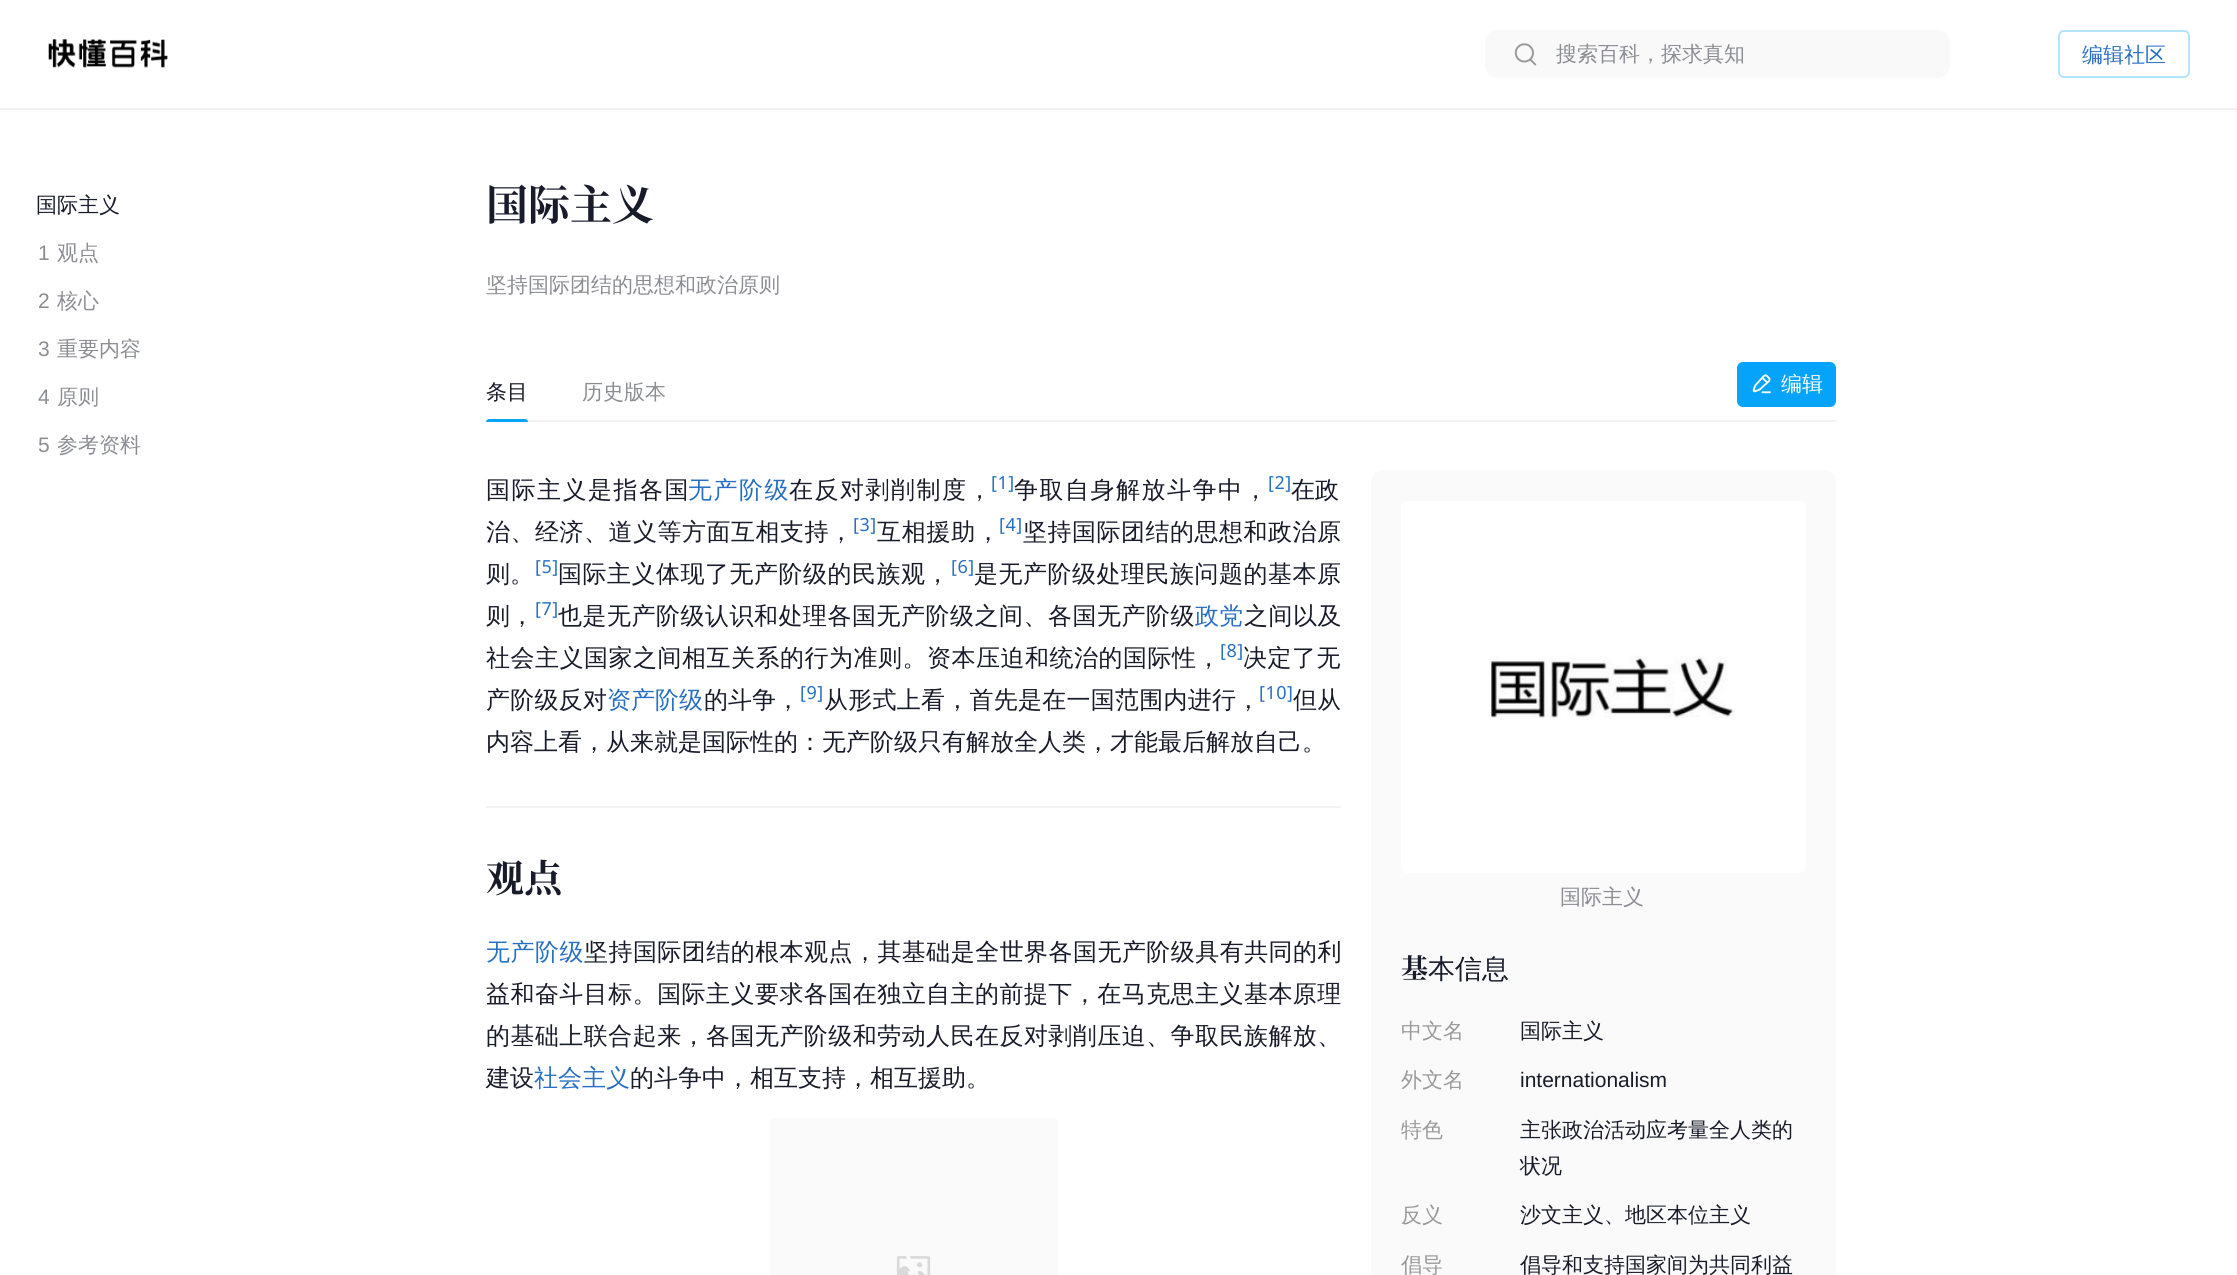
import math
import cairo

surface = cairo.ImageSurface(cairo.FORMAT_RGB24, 2237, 1275)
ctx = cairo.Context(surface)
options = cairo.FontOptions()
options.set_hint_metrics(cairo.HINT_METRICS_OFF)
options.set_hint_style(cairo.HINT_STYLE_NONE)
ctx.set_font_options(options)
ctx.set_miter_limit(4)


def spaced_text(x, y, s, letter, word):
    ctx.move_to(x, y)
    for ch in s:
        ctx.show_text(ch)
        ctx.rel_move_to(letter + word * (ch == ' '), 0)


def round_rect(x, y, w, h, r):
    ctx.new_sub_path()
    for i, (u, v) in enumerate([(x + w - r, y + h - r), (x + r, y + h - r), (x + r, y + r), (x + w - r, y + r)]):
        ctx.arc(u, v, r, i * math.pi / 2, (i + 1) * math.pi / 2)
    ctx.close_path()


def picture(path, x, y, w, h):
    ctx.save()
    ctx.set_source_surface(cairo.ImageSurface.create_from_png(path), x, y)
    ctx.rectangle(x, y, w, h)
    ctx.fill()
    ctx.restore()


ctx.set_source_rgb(1, 1, 1)
ctx.paint()
ctx.set_source_rgb(0.945, 0.945, 0.949)
ctx.rectangle(0, 108, 2237, 2)
ctx.fill()
picture("img1.png", 48, 39, 120, 29)
ctx.set_source_rgb(0.973, 0.973, 0.976)
round_rect(1485, 30, 465, 48, 12)
ctx.fill()
picture("img2.png", 1514, 43, 23, 23)
ctx.select_font_face("WenQuanYi Zen Hei Medium")
ctx.set_font_size(21)
ctx.set_source_rgb(0.549, 0.553, 0.58)
ctx.move_to(1556, 61)
ctx.show_text("搜索百科，探求真知")
round_rect(2059, 31, 130, 46, 5)
ctx.set_source_rgb(0.706, 0.894, 0.996)
ctx.stroke()
ctx.set_source_rgb(0.153, 0.435, 0.761)
ctx.move_to(2082, 62)
ctx.show_text("编辑社区")
ctx.set_source_rgb(0.094, 0.106, 0.161)
ctx.move_to(36, 212)
ctx.show_text("国际主义")
ctx.select_font_face("Liberation Sans")
ctx.set_source_rgb(0.549, 0.553, 0.58)
ctx.move_to(38, 260)
ctx.show_text("1")
ctx.select_font_face("WenQuanYi Zen Hei Medium")
ctx.move_to(57, 260)
ctx.show_text("观点")
ctx.select_font_face("Liberation Sans")
ctx.move_to(38, 308)
ctx.show_text("2")
ctx.select_font_face("WenQuanYi Zen Hei Medium")
ctx.move_to(57, 308)
ctx.show_text("核心")
ctx.select_font_face("Liberation Sans")
ctx.move_to(38, 356)
ctx.show_text("3")
ctx.select_font_face("WenQuanYi Zen Hei Medium")
ctx.move_to(57, 356)
ctx.show_text("重要内容")
ctx.select_font_face("Liberation Sans")
ctx.move_to(38, 404)
ctx.show_text("4")
ctx.select_font_face("WenQuanYi Zen Hei Medium")
ctx.move_to(57, 404)
ctx.show_text("原则")
ctx.select_font_face("Liberation Sans")
ctx.move_to(38, 452)
ctx.show_text("5")
ctx.select_font_face("WenQuanYi Zen Hei Medium")
ctx.move_to(57, 452)
ctx.show_text("参考资料")
ctx.select_font_face("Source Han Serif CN", cairo.FONT_SLANT_NORMAL, cairo.FONT_WEIGHT_BOLD)
ctx.set_font_size(42)
ctx.set_source_rgb(0.094, 0.106, 0.161)
ctx.move_to(486, 220)
ctx.show_text("国际主义")
ctx.select_font_face("WenQuanYi Zen Hei Medium")
ctx.set_font_size(21)
ctx.set_source_rgb(0.549, 0.553, 0.58)
ctx.move_to(486, 292)
ctx.show_text("坚持国际团结的思想和政治原则")
ctx.set_source_rgb(0.094, 0.106, 0.161)
ctx.move_to(486, 399)
ctx.show_text("条目")
ctx.set_source_rgb(0.549, 0.553, 0.58)
ctx.move_to(582, 399)
ctx.show_text("历史版本")
ctx.set_source_rgb(0.949, 0.949, 0.949)
ctx.rectangle(486, 420, 1350, 2)
ctx.fill()
ctx.set_source_rgb(0.02, 0.643, 0.98)
ctx.new_path()
ctx.move_to(489, 419)
ctx.line_to(525, 419)
ctx.curve_to(526.5, 419, 528, 420.5, 528, 422)
ctx.line_to(486, 422)
ctx.curve_to(486, 420.5, 487.5, 419, 489, 419)
ctx.close_path()
ctx.fill()
round_rect(1737, 362, 99, 45, 6)
ctx.fill()
picture("img3.png", 1752, 374, 19, 20)
ctx.set_source_rgb(1, 1, 1)
ctx.move_to(1781, 391)
ctx.show_text("编辑")
ctx.set_font_size(24)
ctx.set_source_rgb(0.094, 0.106, 0.161)
spaced_text(486, 498, "国际主义是指各国", 1.5, 0)
ctx.set_source_rgb(0.153, 0.435, 0.761)
spaced_text(688, 498, "无产阶级", 1.5, 0)
ctx.set_source_rgb(0.094, 0.106, 0.161)
spaced_text(789, 498, "在反对剥削制度，", 1.5, 0)
ctx.select_font_face("Noto Sans")
ctx.set_font_size(18)
ctx.set_source_rgb(0.153, 0.435, 0.761)
spaced_text(991, 489, "[1]", 0.5, 0)
ctx.select_font_face("WenQuanYi Zen Hei Medium")
ctx.set_font_size(24)
ctx.set_source_rgb(0.094, 0.106, 0.161)
spaced_text(1014, 498, "争取自身解放斗争中，", 1.5, 0)
ctx.select_font_face("Noto Sans")
ctx.set_font_size(18)
ctx.set_source_rgb(0.153, 0.435, 0.761)
spaced_text(1268, 489, "[2]", 0.5, 0)
ctx.select_font_face("WenQuanYi Zen Hei Medium")
ctx.set_font_size(24)
ctx.set_source_rgb(0.094, 0.106, 0.161)
ctx.move_to(1291, 498)
ctx.show_text("在政")
spaced_text(486, 540, "治、经济、道义等方面互相支持，", 0.5, 0)
ctx.select_font_face("Noto Sans")
ctx.set_font_size(18)
ctx.set_source_rgb(0.153, 0.435, 0.761)
spaced_text(853, 531, "[3]", 0.5, 0)
ctx.select_font_face("WenQuanYi Zen Hei Medium")
ctx.set_font_size(24)
ctx.set_source_rgb(0.094, 0.106, 0.161)
spaced_text(877, 540, "互相援助，", 0.75, 0)
ctx.select_font_face("Noto Sans")
ctx.set_font_size(18)
ctx.set_source_rgb(0.153, 0.435, 0.761)
spaced_text(999, 531, "[4]", 0.5, 0)
ctx.select_font_face("WenQuanYi Zen Hei Medium")
ctx.set_font_size(24)
ctx.set_source_rgb(0.094, 0.106, 0.161)
spaced_text(1023, 540, "坚持国际团结的思想和政治原", 0.5, 0)
ctx.move_to(486, 582)
ctx.show_text("则。")
ctx.select_font_face("Noto Sans")
ctx.set_font_size(18)
ctx.set_source_rgb(0.153, 0.435, 0.761)
spaced_text(535, 573, "[5]", 0.5, 0)
ctx.select_font_face("WenQuanYi Zen Hei Medium")
ctx.set_font_size(24)
ctx.set_source_rgb(0.094, 0.106, 0.161)
spaced_text(558, 582, "国际主义体现了无产阶级的民族观，", 0.5, 0)
ctx.select_font_face("Noto Sans")
ctx.set_font_size(18)
ctx.set_source_rgb(0.153, 0.435, 0.761)
spaced_text(951, 573, "[6]", 0.5, 0)
ctx.select_font_face("WenQuanYi Zen Hei Medium")
ctx.set_font_size(24)
ctx.set_source_rgb(0.094, 0.106, 0.161)
spaced_text(974, 582, "是无产阶级处理民族问题的基本原", 0.5, 0)
ctx.move_to(486, 624)
ctx.show_text("则，")
ctx.select_font_face("Noto Sans")
ctx.set_font_size(18)
ctx.set_source_rgb(0.153, 0.435, 0.761)
spaced_text(535, 615, "[7]", 0.5, 0)
ctx.select_font_face("WenQuanYi Zen Hei Medium")
ctx.set_font_size(24)
ctx.set_source_rgb(0.094, 0.106, 0.161)
spaced_text(558, 624, "也是无产阶级认识和处理各国无产阶级之间、各国无产阶级", 0.5, 0)
ctx.set_source_rgb(0.153, 0.435, 0.761)
ctx.move_to(1195, 624)
ctx.show_text("政党")
ctx.set_source_rgb(0.094, 0.106, 0.161)
spaced_text(1244, 624, "之间以及", 0.5, 0)
spaced_text(486, 666, "社会主义", 0.5, 0)
spaced_text(584, 666, "国家之间相互关系的行为准则。资本压迫和统治的国际性，", 0.5, 0)
ctx.select_font_face("Noto Sans")
ctx.set_font_size(18)
ctx.set_source_rgb(0.153, 0.435, 0.761)
spaced_text(1220, 657, "[8]", 0.5, 0)
ctx.select_font_face("WenQuanYi Zen Hei Medium")
ctx.set_font_size(24)
ctx.set_source_rgb(0.094, 0.106, 0.161)
spaced_text(1243, 666, "决定了无", 0.5, 0)
spaced_text(486, 708, "产阶级反对", 0.25, 0)
ctx.set_source_rgb(0.153, 0.435, 0.761)
ctx.move_to(607, 708)
ctx.show_text("资产阶级")
ctx.set_source_rgb(0.094, 0.106, 0.161)
ctx.move_to(704, 708)
ctx.show_text("的斗争，")
ctx.select_font_face("Noto Sans")
ctx.set_font_size(18)
ctx.set_source_rgb(0.153, 0.435, 0.761)
spaced_text(800, 699, "[9]", 0.5, 0)
ctx.select_font_face("WenQuanYi Zen Hei Medium")
ctx.set_font_size(24)
ctx.set_source_rgb(0.094, 0.106, 0.161)
spaced_text(824, 708, "从形式上看，首先是在一国范围内进行，", 0.25, 0)
ctx.select_font_face("Noto Sans")
ctx.set_font_size(18)
ctx.set_source_rgb(0.153, 0.435, 0.761)
spaced_text(1259, 699, "[10]", 0.5, 0)
ctx.select_font_face("WenQuanYi Zen Hei Medium")
ctx.set_font_size(24)
ctx.set_source_rgb(0.094, 0.106, 0.161)
ctx.move_to(1293, 708)
ctx.show_text("但从")
ctx.move_to(486, 750)
ctx.show_text("内容上看，从来就是国际性的：无产阶级只有解放全人类，才能最后解放自己。")
ctx.set_source_rgb(0.949, 0.949, 0.949)
ctx.rectangle(486, 806, 855, 2)
ctx.fill()
ctx.select_font_face("Source Han Serif CN", cairo.FONT_SLANT_NORMAL, cairo.FONT_WEIGHT_BOLD)
ctx.set_font_size(38)
ctx.set_source_rgb(0.094, 0.106, 0.161)
ctx.move_to(486, 892)
ctx.show_text("观点")
ctx.select_font_face("WenQuanYi Zen Hei Medium")
ctx.set_font_size(24)
ctx.set_source_rgb(0.153, 0.435, 0.761)
spaced_text(486, 960, "无产阶级", 0.5, 0)
ctx.set_source_rgb(0.094, 0.106, 0.161)
spaced_text(584, 960, "坚持国际团结的根本观点，其基础是全世界各国无产阶级具有共同的利", 0.45, 0)
spaced_text(486, 1002, "益和奋斗目标。国际主义要求各国在独立自主的前提下，在马克思主义基本原理", 0.45, 0)
spaced_text(486, 1044, "的基础上联合起来，各国无产阶级和劳动人民在反对剥削压迫、争取民族解放、", 0.45, 0)
ctx.move_to(486, 1086)
ctx.show_text("建设")
ctx.set_source_rgb(0.153, 0.435, 0.761)
ctx.move_to(534, 1086)
ctx.show_text("社会主义")
ctx.set_source_rgb(0.094, 0.106, 0.161)
ctx.move_to(630, 1086)
ctx.show_text("的斗争中，相互支持，相互援助。")
ctx.set_source_rgb(0.98, 0.98, 0.98)
round_rect(1371, 470, 465, 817, 12)
ctx.fill()
picture("img4.png", 1401, 501, 405, 372)
ctx.set_font_size(21)
ctx.set_source_rgb(0.549, 0.553, 0.58)
ctx.move_to(1560, 904)
ctx.show_text("国际主义")
ctx.select_font_face("Source Han Serif CN", cairo.FONT_SLANT_NORMAL, cairo.FONT_WEIGHT_BOLD)
ctx.set_font_size(27)
ctx.set_source_rgb(0.094, 0.106, 0.161)
ctx.move_to(1401, 978)
ctx.show_text("基")
ctx.select_font_face("WenQuanYi Zen Hei Medium")
ctx.move_to(1428, 978)
ctx.show_text("本信息")
ctx.set_font_size(21)
ctx.set_source_rgb(0.6, 0.6, 0.6)
ctx.move_to(1401, 1038)
ctx.show_text("中文名")
ctx.set_source_rgb(0.094, 0.106, 0.161)
ctx.move_to(1520, 1038)
ctx.show_text("国际主义")
ctx.set_source_rgb(0.6, 0.6, 0.6)
ctx.move_to(1401, 1087)
ctx.show_text("外文名")
ctx.select_font_face("Liberation Sans")
ctx.set_source_rgb(0.094, 0.106, 0.161)
ctx.move_to(1520, 1087)
ctx.show_text("internationalism")
ctx.select_font_face("WenQuanYi Zen Hei Medium")
ctx.set_source_rgb(0.6, 0.6, 0.6)
ctx.move_to(1401, 1137)
ctx.show_text("特色")
ctx.set_source_rgb(0.094, 0.106, 0.161)
ctx.move_to(1520, 1137)
ctx.show_text("主张政治活动应考量全人类的")
ctx.move_to(1520, 1173)
ctx.show_text("状况")
ctx.set_source_rgb(0.6, 0.6, 0.6)
ctx.move_to(1401, 1222)
ctx.show_text("反义")
ctx.set_source_rgb(0.094, 0.106, 0.161)
ctx.move_to(1520, 1222)
ctx.show_text("沙文主义、地区本位主义")
ctx.set_source_rgb(0.6, 0.6, 0.6)
ctx.move_to(1401, 1272)
ctx.show_text("倡导")
ctx.set_source_rgb(0.094, 0.106, 0.161)
ctx.move_to(1520, 1272)
ctx.show_text("倡导和支持国家间为共同利益")
ctx.set_source_rgb(0.98, 0.98, 0.98)
round_rect(770, 1118, 288, 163, 6)
ctx.fill()
picture("img5.png", 896, 1256, 35, 19)
surface.write_to_png("page.png")
